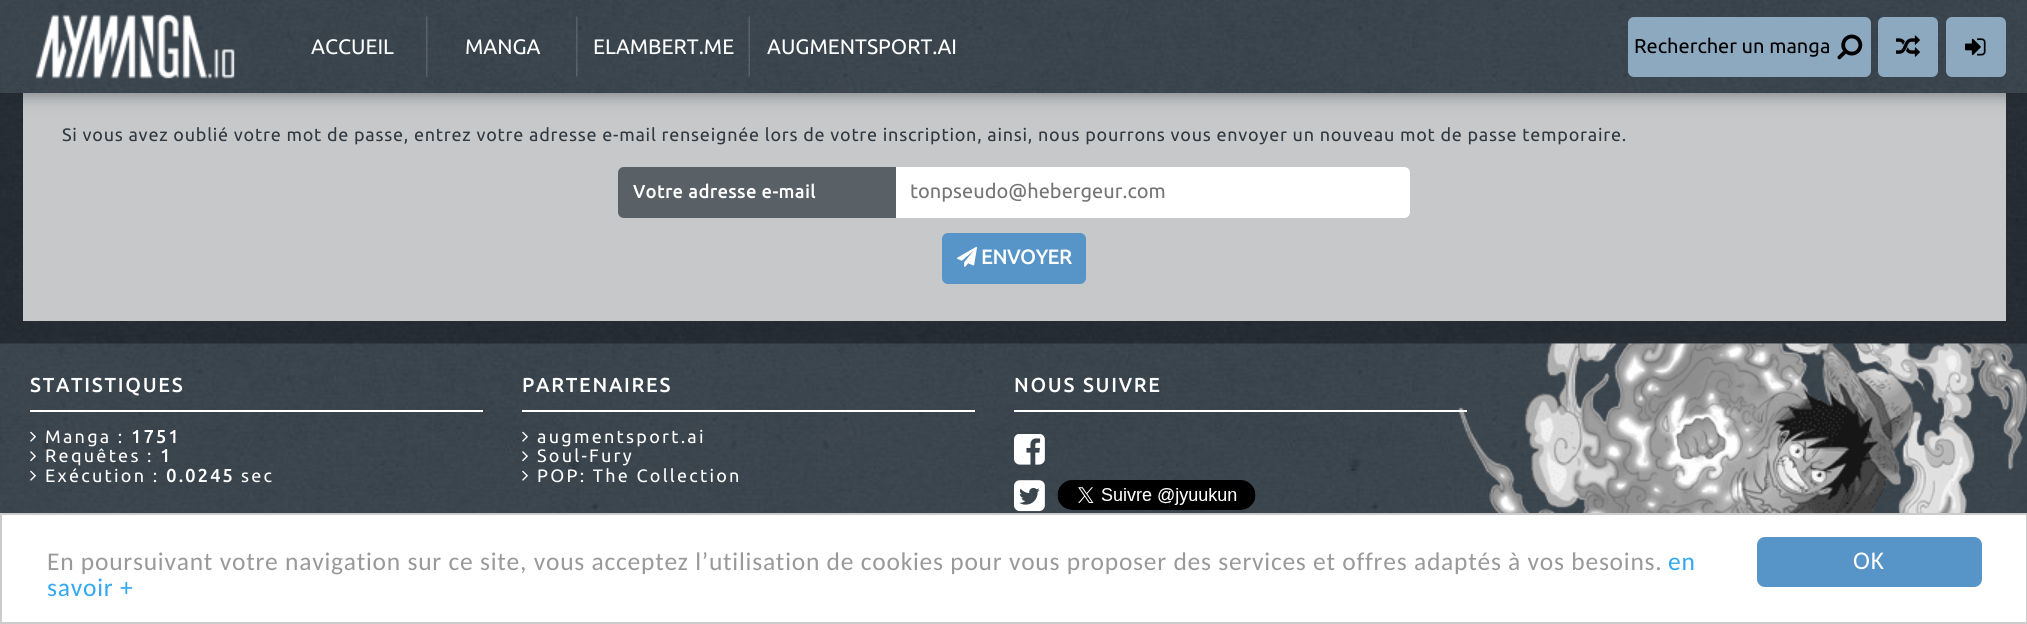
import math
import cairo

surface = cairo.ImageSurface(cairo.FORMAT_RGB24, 2027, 624)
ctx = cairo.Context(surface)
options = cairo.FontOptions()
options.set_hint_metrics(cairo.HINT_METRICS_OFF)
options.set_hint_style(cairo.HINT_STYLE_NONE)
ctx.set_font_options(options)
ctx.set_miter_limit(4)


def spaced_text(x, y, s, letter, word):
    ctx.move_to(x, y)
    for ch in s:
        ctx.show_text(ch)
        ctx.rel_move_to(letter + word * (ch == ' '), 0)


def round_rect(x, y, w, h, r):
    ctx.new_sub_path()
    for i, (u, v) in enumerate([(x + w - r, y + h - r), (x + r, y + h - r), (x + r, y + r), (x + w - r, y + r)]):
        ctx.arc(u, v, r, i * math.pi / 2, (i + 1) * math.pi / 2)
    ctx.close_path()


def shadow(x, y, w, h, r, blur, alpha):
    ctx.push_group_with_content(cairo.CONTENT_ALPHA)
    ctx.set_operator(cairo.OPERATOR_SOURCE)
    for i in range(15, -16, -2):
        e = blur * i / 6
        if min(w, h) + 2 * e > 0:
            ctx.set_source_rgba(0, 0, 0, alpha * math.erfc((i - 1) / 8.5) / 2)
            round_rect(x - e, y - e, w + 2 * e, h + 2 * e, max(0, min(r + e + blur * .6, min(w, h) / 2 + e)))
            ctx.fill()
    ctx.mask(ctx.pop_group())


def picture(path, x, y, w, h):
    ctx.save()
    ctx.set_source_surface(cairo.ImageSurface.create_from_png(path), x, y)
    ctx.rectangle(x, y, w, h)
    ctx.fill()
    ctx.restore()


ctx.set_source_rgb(1, 1, 1)
ctx.paint()
picture("img1.png", 0, 93, 2027, 251)
ctx.set_source_rgb(0.776, 0.784, 0.788)
ctx.rectangle(23, 93, 1983, 228)
ctx.fill()
ctx.set_source_rgb(0.122, 0.145, 0.169)
shadow(0, 3, 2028, 93, 0, 7.5, 0.4)
picture("img2.png", 0, 0, 2027, 93)
picture("img3.png", 35, 14, 200, 65)
picture("img4.png", 426, 16, 2, 61)
ctx.select_font_face("Ubuntu")
ctx.set_font_size(21)
ctx.set_source_rgb(1, 1, 1)
ctx.move_to(311, 54)
ctx.show_text("ACCUEIL")
picture("img5.png", 576, 16, 2, 61)
ctx.move_to(465, 54)
ctx.show_text("MANGA")
picture("img6.png", 748, 16, 2, 61)
ctx.move_to(593, 54)
ctx.show_text("ELAMBERT.ME")
ctx.move_to(767, 54)
ctx.show_text("AUGMENTSPORT.AI")
ctx.set_source_rgb(0.553, 0.663, 0.753)
round_rect(1628, 17, 243, 60, 6)
ctx.fill()
ctx.set_font_size(20)
ctx.set_source_rgb(0, 0, 0)
ctx.move_to(1634, 53)
ctx.show_text("Rechercher un manga")
picture("img7.png", 1837, 34, 26, 26)
ctx.set_source_rgb(0.553, 0.663, 0.753)
round_rect(1878, 17, 60, 60, 6)
ctx.fill()
picture("img8.png", 1896, 35, 24, 22)
round_rect(1946, 17, 60, 60, 6)
ctx.fill()
picture("img9.png", 1965, 38, 21, 18)
ctx.set_font_size(18)
ctx.set_source_rgb(0.188, 0.22, 0.251)
spaced_text(62, 141, "Si vous avez oublié votre mot de passe, entrez votre adresse e-mail renseignée lors de votre inscription, ainsi, nous pourrons vous envoyer un nouveau mot de passe temporaire.", 0.75, 0)
ctx.set_source_rgb(0.349, 0.376, 0.4)
ctx.new_path()
ctx.move_to(624, 167)
ctx.line_to(896, 167)
ctx.line_to(896, 218)
ctx.line_to(624, 218)
ctx.curve_to(620.5, 218, 618, 215.5, 618, 212)
ctx.line_to(618, 173)
ctx.curve_to(618, 169.5, 620.5, 167, 624, 167)
ctx.close_path()
ctx.fill()
ctx.select_font_face("Ubuntu", cairo.FONT_SLANT_NORMAL, cairo.FONT_WEIGHT_BOLD)
ctx.set_source_rgb(1, 1, 1)
spaced_text(633, 198, "Votre adresse e-mail", 0.75, 0)
ctx.new_path()
ctx.move_to(896, 167)
ctx.line_to(1404, 167)
ctx.curve_to(1407.5, 167, 1410, 169.5, 1410, 173)
ctx.line_to(1410, 212)
ctx.curve_to(1410, 215.5, 1407.5, 218, 1404, 218)
ctx.line_to(896, 218)
ctx.close_path()
ctx.fill()
ctx.select_font_face("Ubuntu")
ctx.set_font_size(20)
ctx.set_source_rgb(0.459, 0.459, 0.459)
ctx.move_to(910, 198)
ctx.show_text("tonpseudo@hebergeur.com")
ctx.set_source_rgb(0.341, 0.58, 0.78)
round_rect(942, 233, 144, 51, 6)
ctx.fill()
picture("img10.png", 957, 246, 20, 21)
ctx.select_font_face("Ubuntu", cairo.FONT_SLANT_NORMAL, cairo.FONT_WEIGHT_BOLD)
ctx.set_source_rgb(1, 1, 1)
ctx.move_to(981, 264)
ctx.show_text("ENVOYER")
picture("img11.png", 0, 343, 2027, 170)
picture("img12.png", 1458, 343, 569, 170)
ctx.rectangle(30, 410, 453, 2)
ctx.fill()
ctx.set_font_size(19.5)
spaced_text(30, 392, "STATISTIQUES", 2.25, 0)
picture("img13.png", 30, 431, 6, 11)
ctx.select_font_face("Ubuntu")
ctx.set_font_size(18)
spaced_text(45, 443, "Manga :", 2.25, 0)
ctx.select_font_face("Ubuntu", cairo.FONT_SLANT_NORMAL, cairo.FONT_WEIGHT_BOLD)
spaced_text(131, 443, "1751", 2.25, 0)
picture("img14.png", 30, 451, 6, 11)
ctx.select_font_face("Ubuntu")
spaced_text(45, 462, "Requêtes :", 2.25, 0)
ctx.select_font_face("Ubuntu", cairo.FONT_SLANT_NORMAL, cairo.FONT_WEIGHT_BOLD)
spaced_text(160, 462, "1", 2.25, 0)
picture("img15.png", 30, 470, 6, 11)
ctx.select_font_face("Ubuntu")
spaced_text(45, 482, "Exécution :", 2.25, 0)
ctx.select_font_face("Ubuntu", cairo.FONT_SLANT_NORMAL, cairo.FONT_WEIGHT_BOLD)
spaced_text(166, 482, "0.0245", 2.25, 0)
ctx.select_font_face("Ubuntu")
spaced_text(241, 482, "sec", 2.25, 0)
ctx.rectangle(522, 410, 453, 2)
ctx.fill()
ctx.select_font_face("Ubuntu", cairo.FONT_SLANT_NORMAL, cairo.FONT_WEIGHT_BOLD)
ctx.set_font_size(19.5)
spaced_text(522, 392, "PARTENAIRES", 2.25, 0)
picture("img16.png", 522, 431, 6, 11)
ctx.select_font_face("Ubuntu")
ctx.set_font_size(18)
spaced_text(537, 443, "augmentsport.ai", 2.25, 0)
picture("img17.png", 522, 451, 6, 11)
spaced_text(537, 462, "Soul-Fury", 2.25, 0)
picture("img18.png", 522, 470, 6, 11)
spaced_text(537, 482, "POP: The Collection", 2.25, 0)
ctx.rectangle(1014, 410, 453, 2)
ctx.fill()
ctx.select_font_face("Ubuntu", cairo.FONT_SLANT_NORMAL, cairo.FONT_WEIGHT_BOLD)
ctx.set_font_size(19.5)
spaced_text(1014, 392, "NOUS SUIVRE", 2.25, 0)
picture("img19.png", 1014, 434, 31, 31)
picture("img20.png", 1014, 480, 31, 32)
picture("img21.png", 1057, 480, 199, 30)
ctx.rectangle(1, 514, 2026, 109)
ctx.set_source_rgb(0.8, 0.8, 0.8)
ctx.stroke()
ctx.select_font_face("Carlito")
ctx.set_font_size(25.5)
ctx.set_source_rgb(0.6, 0.6, 0.6)
spaced_text(47, 570, "En poursuivant votre navigation sur ce site, vous acceptez l’utilisation de cookies pour vous proposer des services et offres adaptés à vos besoins.", 0.75, 0)
ctx.set_source_rgb(0.192, 0.659, 0.941)
spaced_text(1668, 570, "en", 0.75, 0)
spaced_text(47, 596, "savoir +", 0.75, 0)
ctx.set_source_rgb(0.341, 0.58, 0.78)
round_rect(1757, 537, 225, 50, 8)
ctx.fill()
ctx.set_source_rgb(1, 1, 1)
spaced_text(1853, 569, "OK", 0.75, 0)
surface.write_to_png("page.png")
